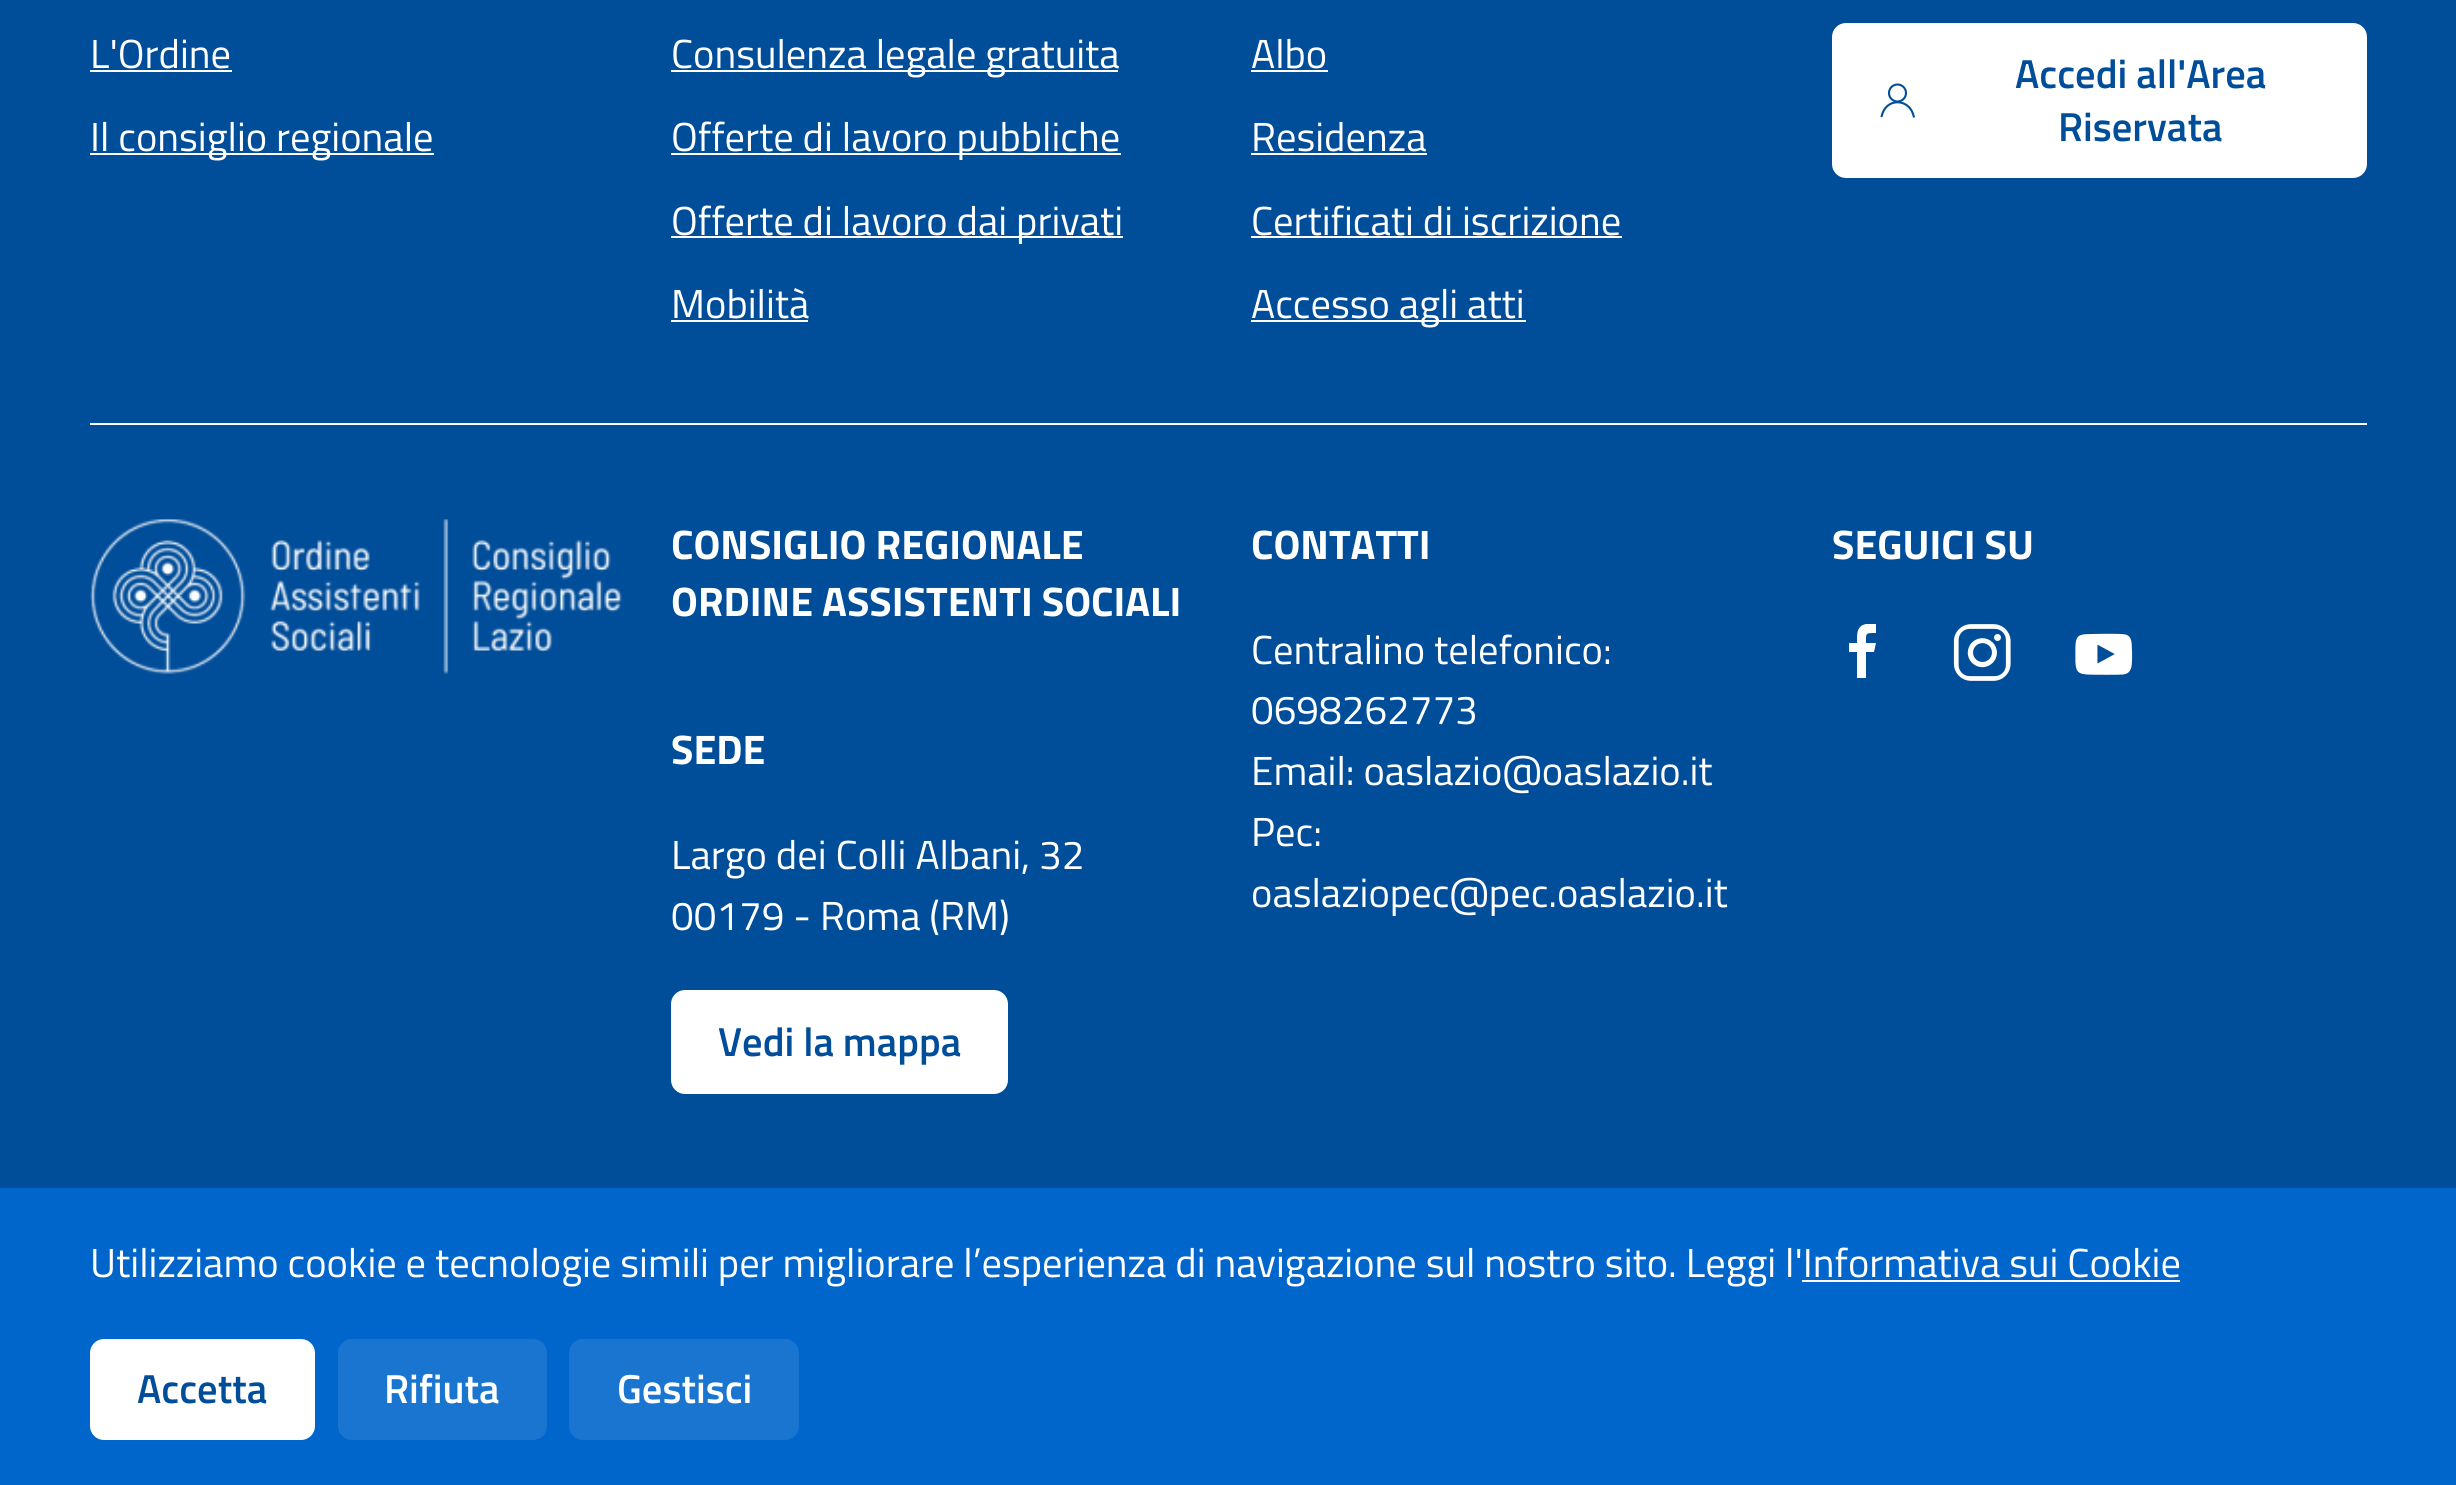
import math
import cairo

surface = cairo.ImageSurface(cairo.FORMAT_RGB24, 2456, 1485)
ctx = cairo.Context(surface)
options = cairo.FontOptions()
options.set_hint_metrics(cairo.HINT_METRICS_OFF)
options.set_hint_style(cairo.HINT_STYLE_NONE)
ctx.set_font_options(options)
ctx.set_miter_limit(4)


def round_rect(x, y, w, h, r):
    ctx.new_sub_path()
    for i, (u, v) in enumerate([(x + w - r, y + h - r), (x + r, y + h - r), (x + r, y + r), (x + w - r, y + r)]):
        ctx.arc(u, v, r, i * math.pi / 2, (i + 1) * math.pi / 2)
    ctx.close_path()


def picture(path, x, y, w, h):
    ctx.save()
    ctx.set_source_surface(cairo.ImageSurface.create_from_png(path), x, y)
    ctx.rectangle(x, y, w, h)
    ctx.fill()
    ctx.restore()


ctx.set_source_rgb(0, 0.302, 0.6)
ctx.paint()
ctx.select_font_face("Titillium Web")
ctx.set_font_size(40.5)
ctx.set_source_rgb(1, 1, 1)
ctx.move_to(90, 68)
ctx.show_text("L'Ordine")
ctx.rectangle(90, 70, 142, 2)
ctx.fill()
ctx.rectangle(90, 153, 344, 2)
ctx.fill()
ctx.move_to(90, 151)
ctx.show_text("Il consiglio regionale")
ctx.rectangle(671, 70, 447, 2)
ctx.fill()
ctx.move_to(671, 68)
ctx.show_text("Consulenza legale gratuita")
ctx.rectangle(671, 153, 450, 2)
ctx.fill()
ctx.move_to(671, 151)
ctx.show_text("Offerte di lavoro pubbliche")
ctx.rectangle(671, 236, 452, 2)
ctx.fill()
ctx.move_to(671, 235)
ctx.show_text("Offerte di lavoro dai privati")
ctx.move_to(671, 318)
ctx.show_text("Mobilità")
ctx.rectangle(671, 320, 137, 2)
ctx.fill()
ctx.move_to(1251, 68)
ctx.show_text("Albo")
ctx.rectangle(1251, 70, 77, 2)
ctx.fill()
ctx.move_to(1251, 151)
ctx.show_text("Residenza")
ctx.rectangle(1251, 153, 176, 2)
ctx.fill()
ctx.move_to(1251, 235)
ctx.show_text("Certificati di iscrizione")
ctx.rectangle(1251, 236, 371, 2)
ctx.fill()
ctx.rectangle(1251, 320, 275, 2)
ctx.fill()
ctx.move_to(1251, 318)
ctx.show_text("Accesso agli atti")
round_rect(1832, 23, 535, 155, 14)
ctx.fill()
ctx.select_font_face("Titillium Web SemiBold")
ctx.set_source_rgb(0, 0.302, 0.6)
ctx.move_to(2015, 88)
ctx.show_text("Accedi all'Area")
ctx.new_path()
ctx.arc(1897.5, 93, 8.5, 0, 2 * math.pi)
ctx.set_line_width(2.1)
ctx.stroke()
ctx.new_path()
ctx.move_to(1881.5, 117)
ctx.curve_to(1885, 97, 1910.5, 97.5, 1914, 117.5)
ctx.stroke()
ctx.move_to(2058, 141)
ctx.show_text("Riservata")
ctx.set_source_rgb(1, 1, 1)
ctx.rectangle(90, 423, 2277, 2)
ctx.fill()
picture("img1.png", 90, 518, 532, 156)
ctx.select_font_face("Titillium Web", cairo.FONT_SLANT_NORMAL, cairo.FONT_WEIGHT_BOLD)
ctx.set_font_size(41.25)
ctx.move_to(671, 559)
ctx.show_text("CONSIGLIO REGIONALE")
ctx.move_to(671, 616)
ctx.show_text("ORDINE ASSISTENTI SOCIALI")
ctx.move_to(671, 764)
ctx.show_text("SEDE")
ctx.select_font_face("Titillium Web")
ctx.set_font_size(40.5)
ctx.move_to(671, 869)
ctx.show_text("Largo dei Colli Albani, 32")
ctx.move_to(671, 930)
ctx.show_text("00179 - Roma (RM)")
round_rect(671, 990, 337, 104, 14)
ctx.fill()
ctx.select_font_face("Titillium Web SemiBold")
ctx.set_source_rgb(0, 0.302, 0.6)
ctx.move_to(718, 1056)
ctx.show_text("Vedi la mappa")
ctx.select_font_face("Titillium Web", cairo.FONT_SLANT_NORMAL, cairo.FONT_WEIGHT_BOLD)
ctx.set_font_size(41.25)
ctx.set_source_rgb(1, 1, 1)
ctx.move_to(1251, 559)
ctx.show_text("CONTATTI")
ctx.select_font_face("Titillium Web")
ctx.set_font_size(40.5)
ctx.move_to(1251, 664)
ctx.show_text("Centralino telefonico:")
ctx.move_to(1251, 724)
ctx.show_text("0698262773")
ctx.move_to(1251, 785)
ctx.show_text("Email: oaslazio@oaslazio.it")
ctx.move_to(1251, 846)
ctx.show_text("Pec:")
ctx.move_to(1251, 907)
ctx.show_text("oaslaziopec@pec.oaslazio.it")
ctx.select_font_face("Titillium Web", cairo.FONT_SLANT_NORMAL, cairo.FONT_WEIGHT_BOLD)
ctx.set_font_size(41.25)
ctx.move_to(1832, 559)
ctx.show_text("SEGUICI SU")
ctx.new_path()
ctx.move_to(1866, 652)
ctx.line_to(1874, 652)
ctx.line_to(1876, 643)
ctx.line_to(1866, 643)
ctx.curve_to(1866, 633, 1865, 633, 1876, 633)
ctx.line_to(1876, 624)
ctx.line_to(1866, 624)
ctx.curve_to(1856, 626, 1857, 635, 1857, 643)
ctx.line_to(1849, 643)
ctx.line_to(1849, 652)
ctx.line_to(1857, 652)
ctx.line_to(1857, 678)
ctx.line_to(1866, 678)
ctx.close_path()
ctx.fill()
picture("img2.png", 1953, 624, 58, 57)
picture("img3.png", 2075, 633, 58, 42)
ctx.set_source_rgb(0, 0.4, 0.8)
ctx.rectangle(0, 1188, 2456, 297)
ctx.fill()
ctx.select_font_face("Titillium Web")
ctx.set_font_size(40.5)
ctx.set_source_rgb(1, 1, 1)
ctx.move_to(90, 1277)
ctx.show_text("Utilizziamo cookie e tecnologie simili per migliorare l’esperienza di navigazione sul nostro sito. Leggi l'Informativa sui Cookie")
ctx.rectangle(1802, 1280, 378, 2)
ctx.fill()
round_rect(90, 1339, 225, 101, 14)
ctx.fill()
ctx.select_font_face("Titillium Web SemiBold")
ctx.set_source_rgb(0, 0.302, 0.6)
ctx.move_to(137, 1403)
ctx.show_text("Accetta")
ctx.set_source_rgb(0.102, 0.459, 0.82)
round_rect(338, 1339, 209, 101, 14)
ctx.fill()
ctx.set_source_rgb(1, 1, 1)
ctx.move_to(384, 1403)
ctx.show_text("Rifiuta")
ctx.set_source_rgb(0.102, 0.459, 0.82)
round_rect(569, 1339, 230, 101, 14)
ctx.fill()
ctx.set_source_rgb(1, 1, 1)
ctx.move_to(617, 1403)
ctx.show_text("Gestisci")
surface.write_to_png("page.png")
